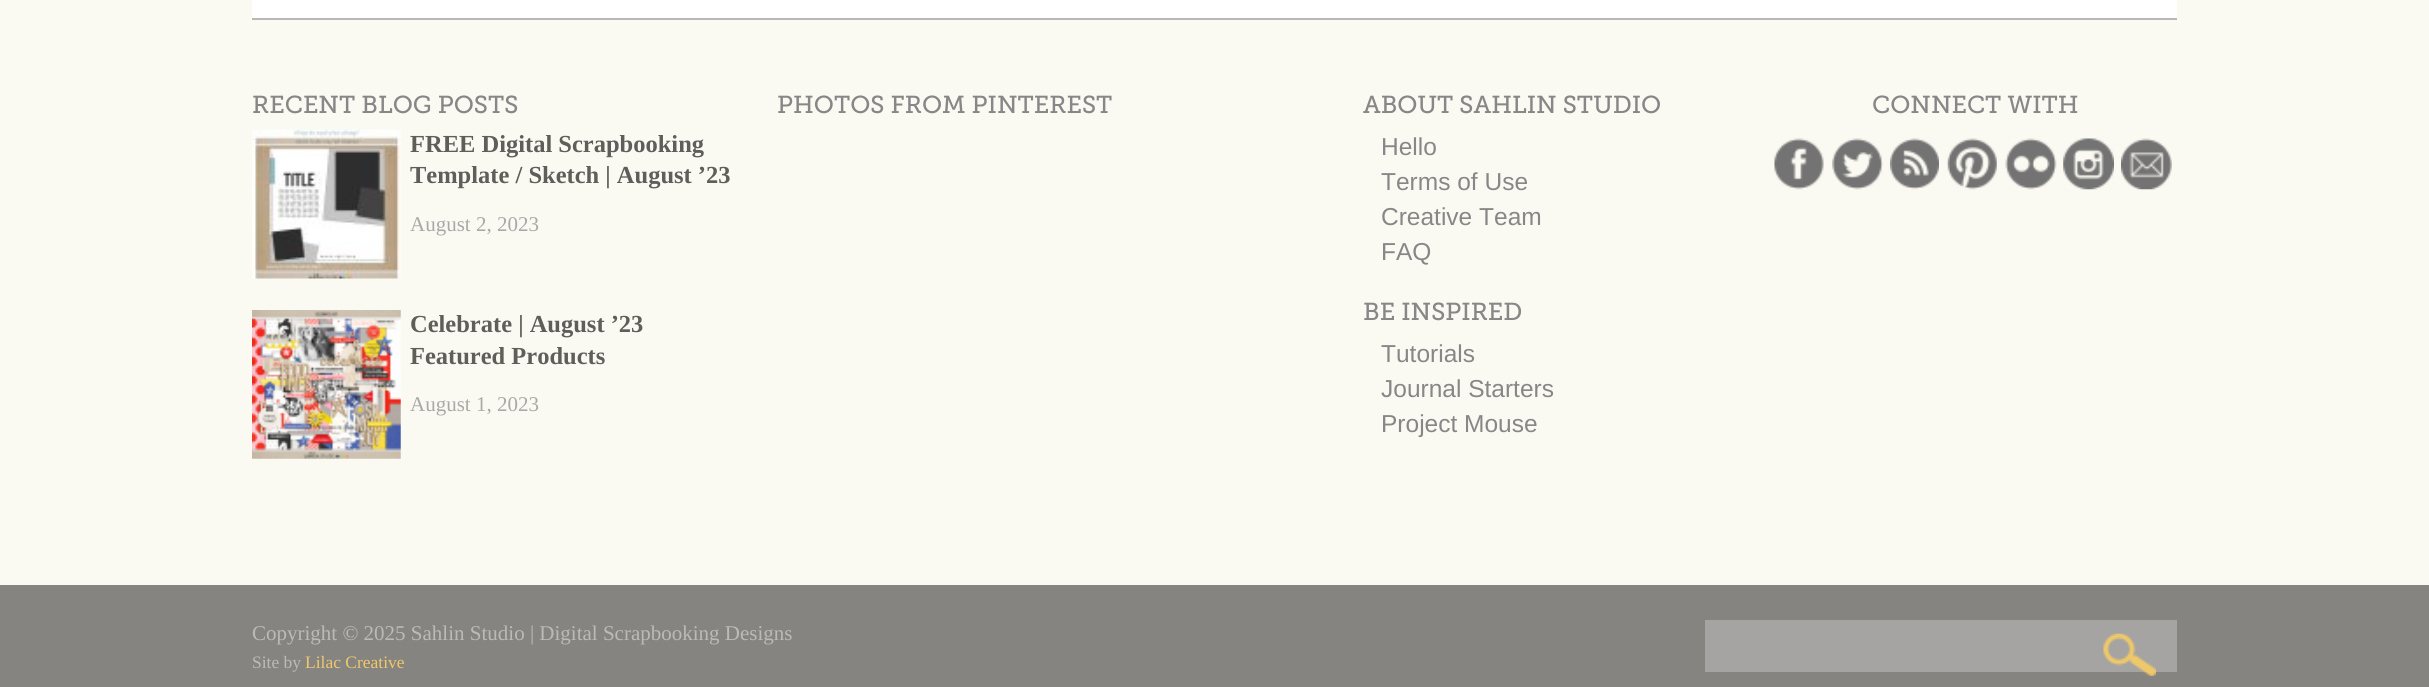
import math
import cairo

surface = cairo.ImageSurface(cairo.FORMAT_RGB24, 2429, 687)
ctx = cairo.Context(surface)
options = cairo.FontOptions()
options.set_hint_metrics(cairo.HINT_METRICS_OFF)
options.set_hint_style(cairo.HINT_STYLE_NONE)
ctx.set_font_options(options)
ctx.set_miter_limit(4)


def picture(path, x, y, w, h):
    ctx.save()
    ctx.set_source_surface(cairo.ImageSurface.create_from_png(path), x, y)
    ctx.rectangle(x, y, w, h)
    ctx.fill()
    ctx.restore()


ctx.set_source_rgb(0.98, 0.973, 0.949)
ctx.paint()
ctx.set_source_rgb(1, 1, 1)
ctx.rectangle(252, 0, 1925, 18)
ctx.fill()
ctx.set_source_rgb(0.718, 0.718, 0.718)
ctx.rectangle(252, 18, 1925, 2)
ctx.fill()
ctx.select_font_face("Museo Slab")
ctx.set_font_size(24.5)
ctx.set_source_rgb(0.529, 0.529, 0.529)
ctx.move_to(252, 113)
ctx.show_text("RECENT BLOG POSTS")
picture("img1.png", 252, 129, 149, 150)
ctx.select_font_face("Liberation Serif", cairo.FONT_SLANT_NORMAL, cairo.FONT_WEIGHT_BOLD)
ctx.set_source_rgb(0.376, 0.365, 0.357)
ctx.move_to(410, 152)
ctx.show_text("FREE Digital Scrapbooking")
ctx.move_to(410, 183)
ctx.show_text("Template / Sketch | August ’23")
ctx.select_font_face("Liberation Serif")
ctx.set_font_size(21)
ctx.set_source_rgb(0.663, 0.663, 0.663)
ctx.move_to(410, 231)
ctx.show_text("August 2, 2023")
picture("img2.png", 252, 310, 149, 149)
ctx.select_font_face("Liberation Serif", cairo.FONT_SLANT_NORMAL, cairo.FONT_WEIGHT_BOLD)
ctx.set_font_size(24.5)
ctx.set_source_rgb(0.376, 0.365, 0.357)
ctx.move_to(410, 332)
ctx.show_text("Celebrate | August ’23")
ctx.move_to(410, 364)
ctx.show_text("Featured Products")
ctx.select_font_face("Liberation Serif")
ctx.set_font_size(21)
ctx.set_source_rgb(0.663, 0.663, 0.663)
ctx.move_to(410, 411)
ctx.show_text("August 1, 2023")
ctx.select_font_face("Museo Slab")
ctx.set_font_size(24.5)
ctx.set_source_rgb(0.529, 0.529, 0.529)
ctx.move_to(777, 113)
ctx.show_text("PHOTOS FROM PINTEREST")
ctx.move_to(1363, 113)
ctx.show_text("ABOUT SAHLIN STUDIO")
ctx.select_font_face("Liberation Sans")
ctx.move_to(1381, 155)
ctx.show_text("Hello")
ctx.move_to(1381, 190)
ctx.show_text("Terms of Use")
ctx.move_to(1381, 225)
ctx.show_text("Creative Team")
ctx.move_to(1381, 260)
ctx.show_text("FAQ")
ctx.select_font_face("Museo Slab")
ctx.move_to(1363, 320)
ctx.show_text("BE INSPIRED")
ctx.select_font_face("Liberation Sans")
ctx.move_to(1381, 362)
ctx.show_text("Tutorials")
ctx.move_to(1381, 397)
ctx.show_text("Journal Starters")
ctx.move_to(1381, 432)
ctx.show_text("Project Mouse")
ctx.select_font_face("Museo Slab")
ctx.move_to(1872, 113)
ctx.show_text("CONNECT WITH")
picture("img3.png", 1774, 138, 50, 52)
picture("img4.png", 1832, 138, 51, 52)
picture("img5.png", 1890, 138, 49, 52)
picture("img6.png", 1947, 138, 50, 52)
picture("img7.png", 2005, 138, 52, 52)
picture("img8.png", 2063, 138, 51, 52)
picture("img9.png", 2121, 138, 51, 52)
ctx.set_source_rgb(0.525, 0.518, 0.506)
ctx.rectangle(0, 585, 2429, 102)
ctx.fill()
ctx.select_font_face("Liberation Serif")
ctx.set_font_size(21)
ctx.set_source_rgb(0.733, 0.729, 0.722)
ctx.move_to(252, 640)
ctx.show_text("Copyright © 2025 Sahlin Studio | Digital Scrapbooking Designs")
ctx.set_font_size(17.5)
ctx.move_to(252, 668)
ctx.show_text("Site by")
ctx.set_source_rgb(0.933, 0.784, 0.416)
ctx.move_to(305, 668)
ctx.show_text("Lilac Creative")
ctx.set_source_rgb(0.647, 0.643, 0.635)
ctx.rectangle(1705, 620, 472, 52)
ctx.fill()
picture("img10.png", 2103, 633, 53, 43)
surface.write_to_png("page.png")
